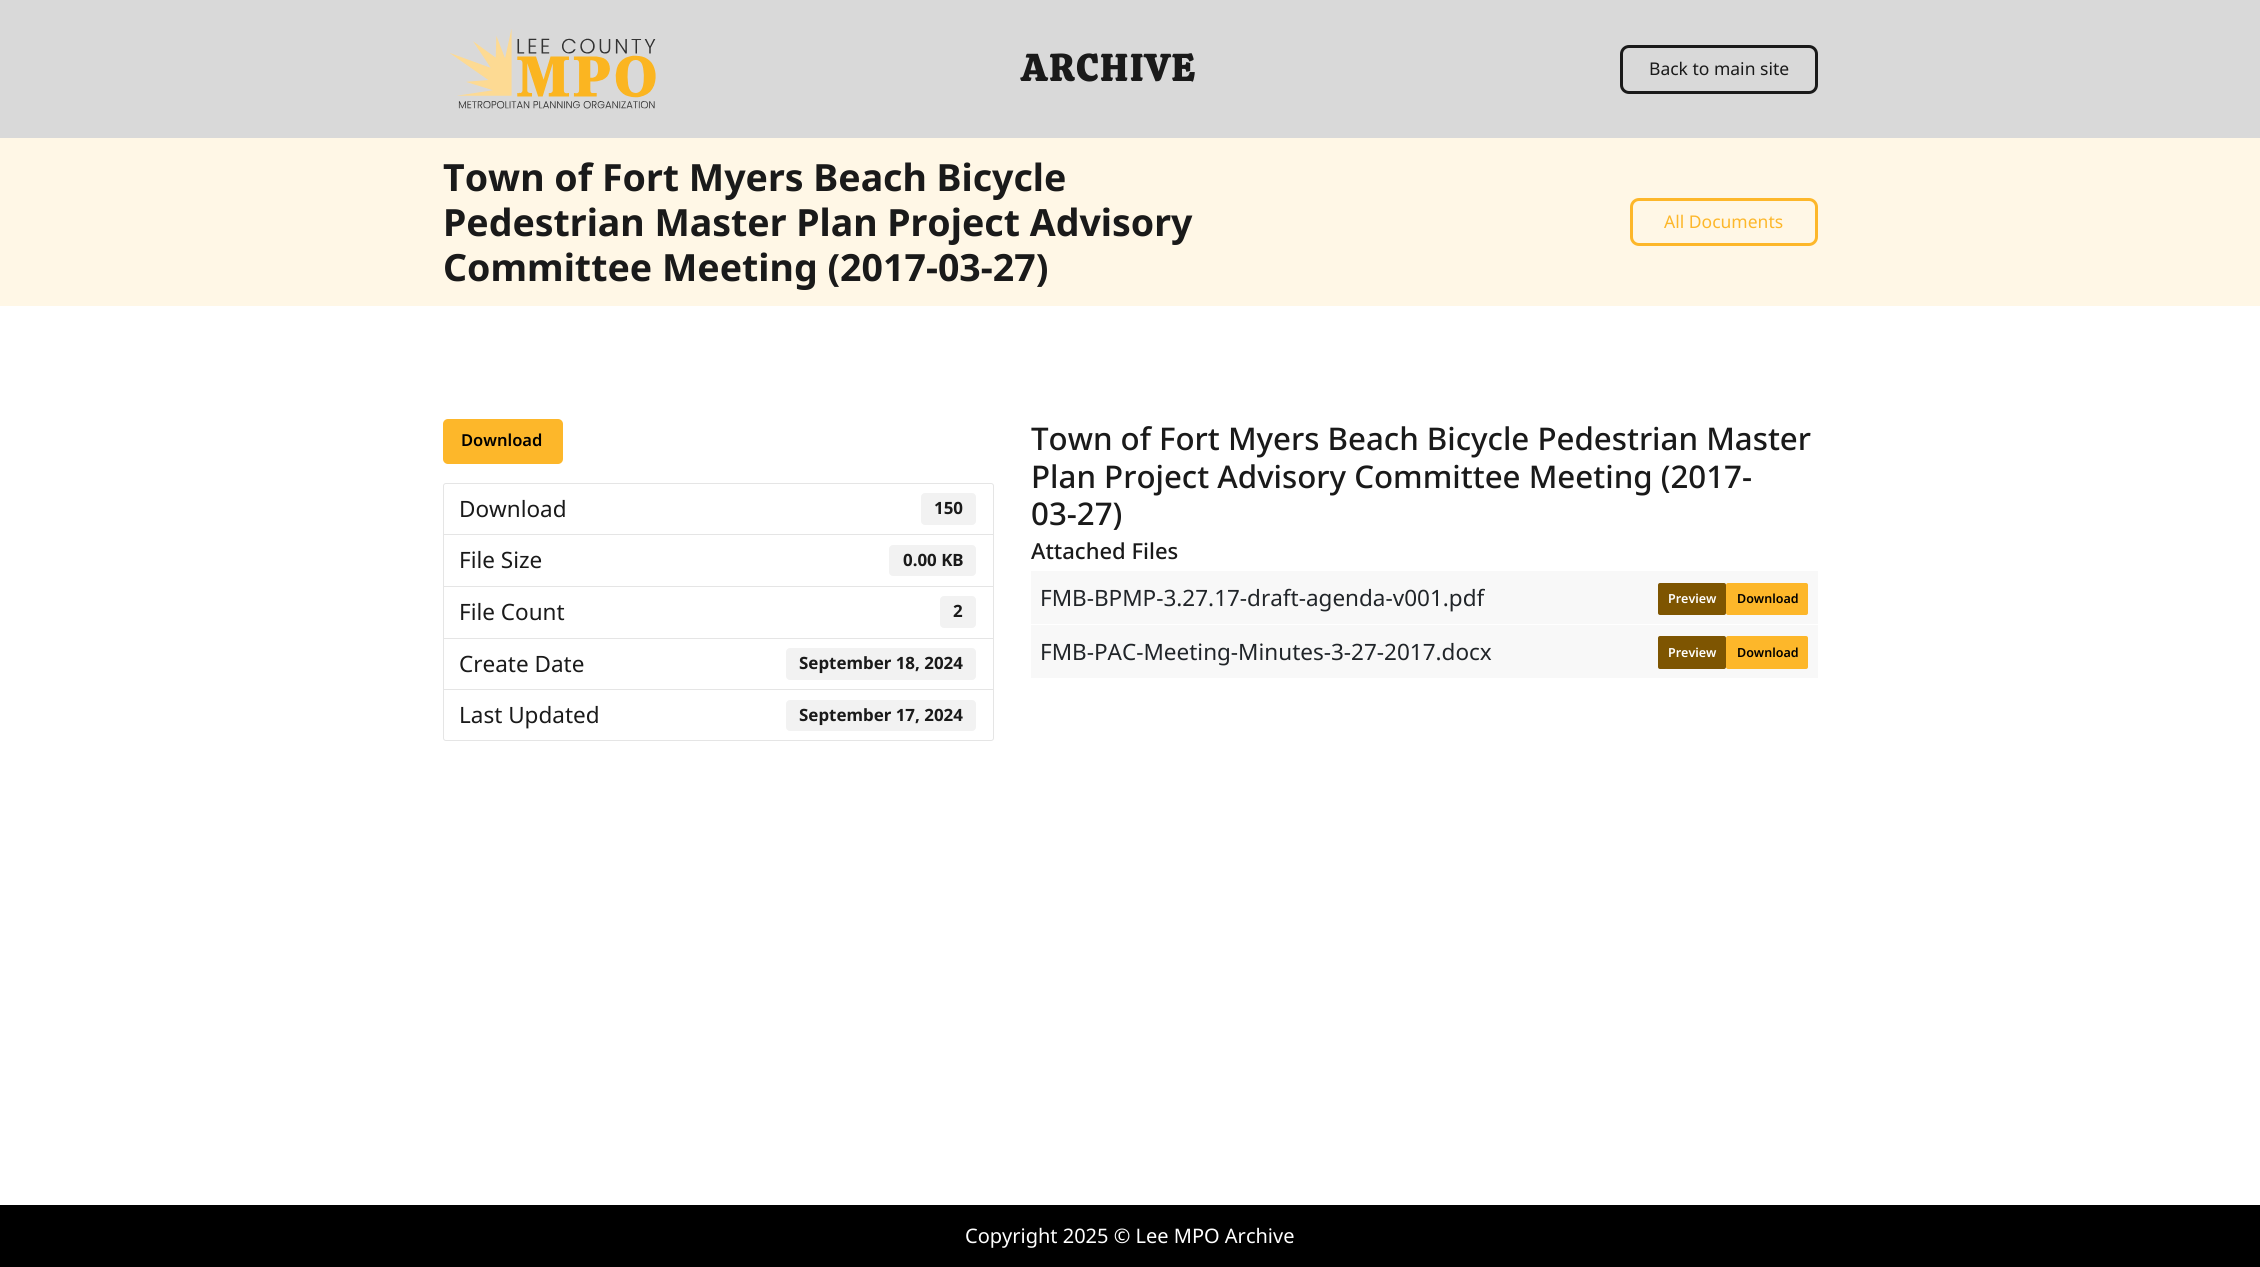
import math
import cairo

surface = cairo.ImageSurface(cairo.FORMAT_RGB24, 2260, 1267)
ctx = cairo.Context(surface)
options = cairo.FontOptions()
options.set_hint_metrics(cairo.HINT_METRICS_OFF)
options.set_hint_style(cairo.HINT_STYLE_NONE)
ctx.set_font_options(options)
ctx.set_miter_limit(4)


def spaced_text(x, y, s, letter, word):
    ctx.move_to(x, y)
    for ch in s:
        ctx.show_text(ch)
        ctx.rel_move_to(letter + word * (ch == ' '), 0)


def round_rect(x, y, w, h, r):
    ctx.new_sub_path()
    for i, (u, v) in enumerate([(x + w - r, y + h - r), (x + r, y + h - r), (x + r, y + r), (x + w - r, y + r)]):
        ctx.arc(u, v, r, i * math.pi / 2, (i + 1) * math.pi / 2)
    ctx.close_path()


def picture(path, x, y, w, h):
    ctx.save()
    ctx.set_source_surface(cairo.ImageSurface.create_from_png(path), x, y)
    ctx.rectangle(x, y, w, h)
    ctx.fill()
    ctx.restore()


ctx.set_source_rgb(1, 1, 1)
ctx.paint()
ctx.set_source_rgb(0.851, 0.851, 0.851)
ctx.rectangle(0, 0, 2260, 138)
ctx.fill()
picture("img1.png", 450, 29, 206, 80)
ctx.select_font_face("Calistoga", cairo.FONT_SLANT_NORMAL, cairo.FONT_WEIGHT_BOLD)
ctx.set_font_size(37.5)
ctx.set_source_rgb(0.102, 0.102, 0.102)
spaced_text(1021, 81, "ARCHIVE", 2.5, 0)
round_rect(1621.5, 46.5, 195, 46, 7.5)
ctx.set_line_width(3)
ctx.stroke()
ctx.select_font_face("Noto Sans")
ctx.set_font_size(17.5)
ctx.move_to(1649, 75)
ctx.show_text("Back to main site")
ctx.set_source_rgb(1, 0.965, 0.902)
ctx.rectangle(0, 138, 2260, 168)
ctx.fill()
ctx.select_font_face("Noto Sans", cairo.FONT_SLANT_NORMAL, cairo.FONT_WEIGHT_BOLD)
ctx.set_font_size(37.5)
ctx.set_source_rgb(0.102, 0.102, 0.102)
ctx.move_to(443, 191)
ctx.show_text("Town of Fort Myers Beach Bicycle")
ctx.move_to(443, 236)
ctx.show_text("Pedestrian Master Plan Project Advisory")
ctx.move_to(443, 281)
ctx.show_text("Committee Meeting (2017-03-27)")
round_rect(1631.5, 199.5, 185, 45, 7.5)
ctx.set_source_rgb(0.992, 0.718, 0.165)
ctx.stroke()
ctx.select_font_face("Noto Sans")
ctx.set_font_size(17.5)
ctx.move_to(1664, 228)
ctx.show_text("All Documents")
round_rect(443, 419, 120, 45, 5)
ctx.fill()
ctx.select_font_face("Noto Sans SemiBold")
ctx.set_font_size(16.5)
ctx.set_source_rgb(0, 0, 0)
ctx.move_to(461, 446)
ctx.show_text("Download")
ctx.new_path()
ctx.move_to(446, 483.5)
ctx.line_to(991, 483.5)
ctx.curve_to(992.5, 483.5, 993.5, 484.5, 993.5, 486)
ctx.line_to(993.5, 534.5)
ctx.line_to(443.5, 534.5)
ctx.line_to(443.5, 486)
ctx.curve_to(443.5, 484.5, 444.5, 483.5, 446, 483.5)
ctx.close_path()
ctx.set_source_rgb(0.898, 0.898, 0.898)
ctx.set_line_width(1)
ctx.stroke()
ctx.select_font_face("Noto Sans")
ctx.set_font_size(22.5)
ctx.set_source_rgb(0.102, 0.102, 0.102)
ctx.move_to(459, 517)
ctx.show_text("Download")
ctx.set_source_rgb(0.949, 0.949, 0.949)
round_rect(921, 493, 55, 32, 4)
ctx.fill()
ctx.select_font_face("Noto Sans", cairo.FONT_SLANT_NORMAL, cairo.FONT_WEIGHT_BOLD)
ctx.set_font_size(16.9)
ctx.set_source_rgb(0.102, 0.102, 0.102)
ctx.move_to(934, 514)
ctx.show_text("150")
ctx.rectangle(443.5, 534.5, 550, 53)
ctx.set_source_rgb(0.898, 0.898, 0.898)
ctx.stroke()
ctx.select_font_face("Noto Sans")
ctx.set_font_size(22.5)
ctx.set_source_rgb(0.102, 0.102, 0.102)
ctx.move_to(459, 568)
ctx.show_text("File Size")
ctx.set_source_rgb(0.949, 0.949, 0.949)
round_rect(889, 545, 87, 31, 4)
ctx.fill()
ctx.select_font_face("Noto Sans", cairo.FONT_SLANT_NORMAL, cairo.FONT_WEIGHT_BOLD)
ctx.set_font_size(16.9)
ctx.set_source_rgb(0.102, 0.102, 0.102)
ctx.move_to(903, 566)
ctx.show_text("0.00 KB")
ctx.set_source_rgb(1, 1, 1)
ctx.rectangle(444, 587, 549, 1)
ctx.fill()
ctx.rectangle(443.5, 586.5, 550, 52)
ctx.set_source_rgb(0.898, 0.898, 0.898)
ctx.stroke()
ctx.select_font_face("Noto Sans")
ctx.set_font_size(22.5)
ctx.set_source_rgb(0.102, 0.102, 0.102)
ctx.move_to(459, 620)
ctx.show_text("File Count")
ctx.set_source_rgb(0.949, 0.949, 0.949)
round_rect(940, 596, 36, 32, 4)
ctx.fill()
ctx.select_font_face("Noto Sans", cairo.FONT_SLANT_NORMAL, cairo.FONT_WEIGHT_BOLD)
ctx.set_font_size(16.9)
ctx.set_source_rgb(0.102, 0.102, 0.102)
ctx.move_to(953, 617)
ctx.show_text("2")
ctx.rectangle(443.5, 638.5, 550, 51)
ctx.set_source_rgb(0.898, 0.898, 0.898)
ctx.stroke()
ctx.select_font_face("Noto Sans")
ctx.set_font_size(22.5)
ctx.set_source_rgb(0.102, 0.102, 0.102)
ctx.move_to(459, 672)
ctx.show_text("Create Date")
ctx.set_source_rgb(0.949, 0.949, 0.949)
round_rect(786, 648, 190, 32, 4)
ctx.fill()
ctx.select_font_face("Noto Sans", cairo.FONT_SLANT_NORMAL, cairo.FONT_WEIGHT_BOLD)
ctx.set_font_size(16.9)
ctx.set_source_rgb(0.102, 0.102, 0.102)
ctx.move_to(799, 669)
ctx.show_text("September 18, 2024")
ctx.set_source_rgb(1, 1, 1)
ctx.new_path()
ctx.move_to(443.5, 689.5)
ctx.line_to(993.5, 689.5)
ctx.line_to(993.5, 738)
ctx.curve_to(993.5, 739.5, 992.5, 740.5, 991, 740.5)
ctx.line_to(446, 740.5)
ctx.curve_to(444.5, 740.5, 443.5, 739.5, 443.5, 738)
ctx.close_path()
ctx.fill_preserve()
ctx.set_source_rgb(0.898, 0.898, 0.898)
ctx.stroke()
ctx.select_font_face("Noto Sans")
ctx.set_font_size(22.5)
ctx.set_source_rgb(0.102, 0.102, 0.102)
ctx.move_to(459, 723)
ctx.show_text("Last Updated")
ctx.set_source_rgb(0.949, 0.949, 0.949)
round_rect(786, 700, 190, 31, 4)
ctx.fill()
ctx.select_font_face("Noto Sans", cairo.FONT_SLANT_NORMAL, cairo.FONT_WEIGHT_BOLD)
ctx.set_font_size(16.9)
ctx.set_source_rgb(0.102, 0.102, 0.102)
ctx.move_to(799, 721)
ctx.show_text("September 17, 2024")
ctx.select_font_face("Noto Sans Medium")
ctx.set_font_size(31.25)
ctx.move_to(1031, 450)
ctx.show_text("Town of Fort Myers Beach Bicycle Pedestrian Master")
ctx.move_to(1031, 488)
ctx.show_text("Plan Project Advisory Committee Meeting (2017-")
ctx.move_to(1031, 525)
ctx.show_text("03-27)")
ctx.set_font_size(22)
ctx.move_to(1031, 559)
ctx.show_text("Attached Files")
ctx.set_source_rgb(0.969, 0.969, 0.969)
ctx.rectangle(1031, 571, 787, 53)
ctx.fill()
ctx.select_font_face("Noto Sans")
ctx.set_font_size(22.5)
ctx.set_source_rgb(0.129, 0.145, 0.161)
ctx.move_to(1040, 606)
ctx.show_text("FMB-BPMP-3.27.17-draft-agenda-v001.pdf")
ctx.set_source_rgb(0.494, 0.333, 0.004)
round_rect(1658, 583, 68, 32, 2)
ctx.fill()
ctx.select_font_face("Noto Sans SemiBold")
ctx.set_font_size(12.5)
ctx.set_source_rgb(1, 1, 1)
ctx.move_to(1668, 603)
ctx.show_text("Preview")
ctx.set_source_rgb(0.992, 0.718, 0.165)
round_rect(1726, 583, 82, 32, 2)
ctx.fill()
ctx.set_source_rgb(0, 0, 0)
ctx.move_to(1737, 603)
ctx.show_text("Download")
ctx.set_source_rgb(0.969, 0.969, 0.969)
ctx.rectangle(1031, 625, 787, 53)
ctx.fill()
ctx.select_font_face("Noto Sans")
ctx.set_font_size(22.5)
ctx.set_source_rgb(0.129, 0.145, 0.161)
ctx.move_to(1040, 660)
ctx.show_text("FMB-PAC-Meeting-Minutes-3-27-2017.docx")
ctx.set_source_rgb(0.494, 0.333, 0.004)
round_rect(1658, 636, 68, 33, 2)
ctx.fill()
ctx.select_font_face("Noto Sans SemiBold")
ctx.set_font_size(12.5)
ctx.set_source_rgb(1, 1, 1)
ctx.move_to(1668, 657)
ctx.show_text("Preview")
ctx.set_source_rgb(0.992, 0.718, 0.165)
round_rect(1726, 636, 82, 33, 2)
ctx.fill()
ctx.set_source_rgb(0, 0, 0)
ctx.move_to(1737, 657)
ctx.show_text("Download")
ctx.rectangle(0, 1205, 2260, 62)
ctx.fill()
ctx.select_font_face("Noto Sans")
ctx.set_font_size(20)
ctx.set_source_rgb(1, 1, 1)
ctx.move_to(965, 1243)
ctx.show_text("Copyright 2025 © Lee MPO Archive")
surface.write_to_png("page.png")
